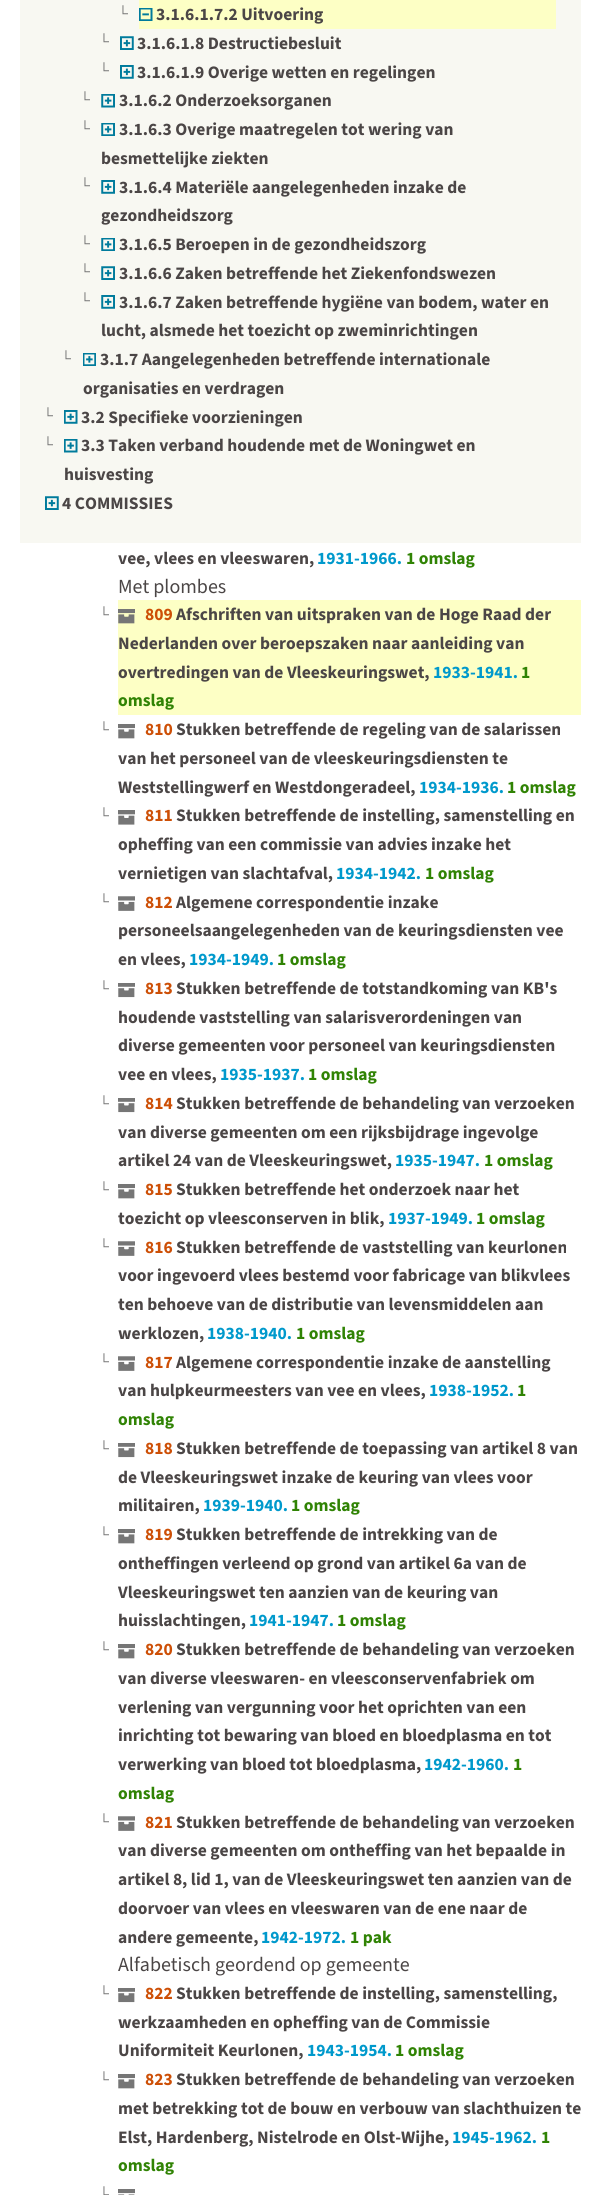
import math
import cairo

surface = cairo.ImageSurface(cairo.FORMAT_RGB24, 601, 2195)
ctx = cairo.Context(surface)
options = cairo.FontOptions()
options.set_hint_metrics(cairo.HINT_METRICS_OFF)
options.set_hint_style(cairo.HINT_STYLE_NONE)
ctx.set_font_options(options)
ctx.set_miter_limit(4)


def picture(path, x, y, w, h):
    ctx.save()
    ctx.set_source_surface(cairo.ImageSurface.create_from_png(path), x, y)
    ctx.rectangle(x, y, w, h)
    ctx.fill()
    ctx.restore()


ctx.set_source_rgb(1, 1, 1)
ctx.paint()
ctx.set_source_rgb(0.969, 0.969, 0.949)
ctx.rectangle(20, 0, 561, 543)
ctx.fill()
ctx.select_font_face("Liberation Sans")
ctx.set_font_size(14)
ctx.set_source_rgb(0.463, 0.463, 0.463)
ctx.move_to(118, 18)
ctx.show_text("└")
ctx.set_source_rgb(0.992, 1, 0.773)
ctx.rectangle(139, 0, 417, 29)
ctx.fill()
picture("img1.png", 139, 8, 14, 13)
ctx.select_font_face("Source Sans 3", cairo.FONT_SLANT_NORMAL, cairo.FONT_WEIGHT_BOLD)
ctx.set_font_size(17.5)
ctx.set_source_rgb(0.294, 0.275, 0.275)
ctx.move_to(156, 20)
ctx.show_text("3.1.6.1.7.2 Uitvoering")
ctx.select_font_face("Liberation Sans")
ctx.set_font_size(14)
ctx.set_source_rgb(0.463, 0.463, 0.463)
ctx.move_to(99, 46)
ctx.show_text("└")
picture("img2.png", 120, 36, 14, 14)
ctx.select_font_face("Source Sans 3", cairo.FONT_SLANT_NORMAL, cairo.FONT_WEIGHT_BOLD)
ctx.set_font_size(17.5)
ctx.set_source_rgb(0.294, 0.275, 0.275)
ctx.move_to(137, 49)
ctx.show_text("3.1.6.1.8 Destructiebesluit")
ctx.select_font_face("Liberation Sans")
ctx.set_font_size(14)
ctx.set_source_rgb(0.463, 0.463, 0.463)
ctx.move_to(99, 75)
ctx.show_text("└")
picture("img3.png", 120, 65, 14, 14)
ctx.select_font_face("Source Sans 3", cairo.FONT_SLANT_NORMAL, cairo.FONT_WEIGHT_BOLD)
ctx.set_font_size(17.5)
ctx.set_source_rgb(0.294, 0.275, 0.275)
ctx.move_to(137, 78)
ctx.show_text("3.1.6.1.9 Overige wetten en regelingen")
ctx.select_font_face("Liberation Sans")
ctx.set_font_size(14)
ctx.set_source_rgb(0.463, 0.463, 0.463)
ctx.move_to(80, 104)
ctx.show_text("└")
picture("img4.png", 101, 94, 14, 14)
ctx.select_font_face("Source Sans 3", cairo.FONT_SLANT_NORMAL, cairo.FONT_WEIGHT_BOLD)
ctx.set_font_size(17.5)
ctx.set_source_rgb(0.294, 0.275, 0.275)
ctx.move_to(119, 106)
ctx.show_text("3.1.6.2 Onderzoeksorganen")
ctx.select_font_face("Liberation Sans")
ctx.set_font_size(14)
ctx.set_source_rgb(0.463, 0.463, 0.463)
ctx.move_to(80, 133)
ctx.show_text("└")
picture("img5.png", 101, 123, 14, 13)
ctx.select_font_face("Source Sans 3", cairo.FONT_SLANT_NORMAL, cairo.FONT_WEIGHT_BOLD)
ctx.set_font_size(17.5)
ctx.set_source_rgb(0.294, 0.275, 0.275)
ctx.move_to(119, 135)
ctx.show_text("3.1.6.3 Overige maatregelen tot wering van")
ctx.move_to(101, 164)
ctx.show_text("besmettelijke ziekten")
ctx.select_font_face("Liberation Sans")
ctx.set_font_size(14)
ctx.set_source_rgb(0.463, 0.463, 0.463)
ctx.move_to(80, 190)
ctx.show_text("└")
picture("img6.png", 101, 180, 14, 14)
ctx.select_font_face("Source Sans 3", cairo.FONT_SLANT_NORMAL, cairo.FONT_WEIGHT_BOLD)
ctx.set_font_size(17.5)
ctx.set_source_rgb(0.294, 0.275, 0.275)
ctx.move_to(119, 193)
ctx.show_text("3.1.6.4 Materiële aangelegenheden inzake de")
ctx.move_to(101, 221)
ctx.show_text("gezondheidszorg")
ctx.select_font_face("Liberation Sans")
ctx.set_font_size(14)
ctx.set_source_rgb(0.463, 0.463, 0.463)
ctx.move_to(80, 248)
ctx.show_text("└")
picture("img5.png", 101, 238, 14, 13)
ctx.select_font_face("Source Sans 3", cairo.FONT_SLANT_NORMAL, cairo.FONT_WEIGHT_BOLD)
ctx.set_font_size(17.5)
ctx.set_source_rgb(0.294, 0.275, 0.275)
ctx.move_to(119, 250)
ctx.show_text("3.1.6.5 Beroepen in de gezondheidszorg")
ctx.select_font_face("Liberation Sans")
ctx.set_font_size(14)
ctx.set_source_rgb(0.463, 0.463, 0.463)
ctx.move_to(80, 276)
ctx.show_text("└")
picture("img7.png", 101, 266, 14, 14)
ctx.select_font_face("Source Sans 3", cairo.FONT_SLANT_NORMAL, cairo.FONT_WEIGHT_BOLD)
ctx.set_font_size(17.5)
ctx.set_source_rgb(0.294, 0.275, 0.275)
ctx.move_to(119, 279)
ctx.show_text("3.1.6.6 Zaken betreffende het Ziekenfondswezen")
ctx.select_font_face("Liberation Sans")
ctx.set_font_size(14)
ctx.set_source_rgb(0.463, 0.463, 0.463)
ctx.move_to(80, 305)
ctx.show_text("└")
picture("img6.png", 101, 295, 14, 14)
ctx.select_font_face("Source Sans 3", cairo.FONT_SLANT_NORMAL, cairo.FONT_WEIGHT_BOLD)
ctx.set_font_size(17.5)
ctx.set_source_rgb(0.294, 0.275, 0.275)
ctx.move_to(119, 308)
ctx.show_text("3.1.6.7 Zaken betreffende hygiëne van bodem, water en")
ctx.move_to(101, 336)
ctx.show_text("lucht, alsmede het toezicht op zweminrichtingen")
ctx.select_font_face("Liberation Sans")
ctx.set_font_size(14)
ctx.set_source_rgb(0.463, 0.463, 0.463)
ctx.move_to(61, 363)
ctx.show_text("└")
picture("img8.png", 83, 353, 13, 13)
ctx.select_font_face("Source Sans 3", cairo.FONT_SLANT_NORMAL, cairo.FONT_WEIGHT_BOLD)
ctx.set_font_size(17.5)
ctx.set_source_rgb(0.294, 0.275, 0.275)
ctx.move_to(100, 365)
ctx.show_text("3.1.7 Aangelegenheden betreffende internationale")
ctx.move_to(83, 394)
ctx.show_text("organisaties en verdragen")
ctx.select_font_face("Liberation Sans")
ctx.set_font_size(14)
ctx.set_source_rgb(0.463, 0.463, 0.463)
ctx.move_to(43, 420)
ctx.show_text("└")
picture("img9.png", 64, 410, 14, 14)
ctx.select_font_face("Source Sans 3", cairo.FONT_SLANT_NORMAL, cairo.FONT_WEIGHT_BOLD)
ctx.set_font_size(17.5)
ctx.set_source_rgb(0.294, 0.275, 0.275)
ctx.move_to(81, 423)
ctx.show_text("3.2 Specifieke voorzieningen")
ctx.select_font_face("Liberation Sans")
ctx.set_font_size(14)
ctx.set_source_rgb(0.463, 0.463, 0.463)
ctx.move_to(43, 449)
ctx.show_text("└")
picture("img10.png", 64, 439, 14, 14)
ctx.select_font_face("Source Sans 3", cairo.FONT_SLANT_NORMAL, cairo.FONT_WEIGHT_BOLD)
ctx.set_font_size(17.5)
ctx.set_source_rgb(0.294, 0.275, 0.275)
ctx.move_to(81, 451)
ctx.show_text("3.3 Taken verband houdende met de Woningwet en")
ctx.move_to(64, 480)
ctx.show_text("huisvesting")
picture("img2.png", 45, 496, 14, 14)
ctx.move_to(62, 509)
ctx.show_text("4 COMMISSIES")
ctx.move_to(118, 564)
ctx.show_text("vee, vlees en vleeswaren,")
ctx.set_source_rgb(0, 0.6, 0.8)
ctx.move_to(317, 564)
ctx.show_text("1931-1966.")
ctx.set_source_rgb(0.188, 0.514, 0.016)
ctx.move_to(406, 564)
ctx.show_text("1 omslag")
ctx.select_font_face("Source Sans 3")
ctx.set_font_size(20)
ctx.set_source_rgb(0.294, 0.275, 0.275)
ctx.move_to(118, 593)
ctx.show_text("Met plombes")
ctx.select_font_face("Liberation Sans")
ctx.set_font_size(14)
ctx.set_source_rgb(0.463, 0.463, 0.463)
ctx.move_to(99, 619)
ctx.show_text("└")
ctx.set_source_rgb(0.992, 1, 0.773)
ctx.rectangle(118, 600, 463, 115)
ctx.fill()
picture("img11.png", 118, 609, 17, 15)
ctx.select_font_face("Source Sans 3", cairo.FONT_SLANT_NORMAL, cairo.FONT_WEIGHT_BOLD)
ctx.set_font_size(17.5)
ctx.set_source_rgb(0.804, 0.31, 0.024)
ctx.move_to(145, 620)
ctx.show_text("809")
ctx.set_source_rgb(0.294, 0.275, 0.275)
ctx.move_to(176, 620)
ctx.show_text("Afschriften van uitspraken van de Hoge Raad der")
ctx.move_to(118, 649)
ctx.show_text("Nederlanden over beroepszaken naar aanleiding van")
ctx.move_to(118, 678)
ctx.show_text("overtredingen van de Vleeskeuringswet,")
ctx.set_source_rgb(0, 0.6, 0.8)
ctx.move_to(433, 678)
ctx.show_text("1933-1941.")
ctx.set_source_rgb(0.188, 0.514, 0.016)
ctx.move_to(521, 678)
ctx.show_text("1")
ctx.move_to(118, 706)
ctx.show_text("omslag")
ctx.select_font_face("Liberation Sans")
ctx.set_font_size(14)
ctx.set_source_rgb(0.463, 0.463, 0.463)
ctx.move_to(99, 734)
ctx.show_text("└")
picture("img12.png", 118, 724, 17, 15)
ctx.select_font_face("Source Sans 3", cairo.FONT_SLANT_NORMAL, cairo.FONT_WEIGHT_BOLD)
ctx.set_font_size(17.5)
ctx.set_source_rgb(0.804, 0.31, 0.024)
ctx.move_to(145, 735)
ctx.show_text("810")
ctx.set_source_rgb(0.294, 0.275, 0.275)
ctx.move_to(176, 735)
ctx.show_text("Stukken betreffende de regeling van de salarissen")
ctx.move_to(118, 764)
ctx.show_text("van het personeel van de vleeskeuringsdiensten te")
ctx.move_to(118, 793)
ctx.show_text("Weststellingwerf en Westdongeradeel,")
ctx.set_source_rgb(0, 0.6, 0.8)
ctx.move_to(419, 793)
ctx.show_text("1934-1936.")
ctx.set_source_rgb(0.188, 0.514, 0.016)
ctx.move_to(507, 793)
ctx.show_text("1 omslag")
ctx.select_font_face("Liberation Sans")
ctx.set_font_size(14)
ctx.set_source_rgb(0.463, 0.463, 0.463)
ctx.move_to(99, 820)
ctx.show_text("└")
picture("img13.png", 118, 810, 17, 15)
ctx.select_font_face("Source Sans 3", cairo.FONT_SLANT_NORMAL, cairo.FONT_WEIGHT_BOLD)
ctx.set_font_size(17.5)
ctx.set_source_rgb(0.804, 0.31, 0.024)
ctx.move_to(145, 821)
ctx.show_text("811")
ctx.set_source_rgb(0.294, 0.275, 0.275)
ctx.move_to(176, 821)
ctx.show_text("Stukken betreffende de instelling, samenstelling en")
ctx.move_to(118, 850)
ctx.show_text("opheffing van een commissie van advies inzake het")
ctx.move_to(118, 879)
ctx.show_text("vernietigen van slachtafval,")
ctx.set_source_rgb(0, 0.6, 0.8)
ctx.move_to(336, 879)
ctx.show_text("1934-1942.")
ctx.set_source_rgb(0.188, 0.514, 0.016)
ctx.move_to(425, 879)
ctx.show_text("1 omslag")
ctx.select_font_face("Liberation Sans")
ctx.set_font_size(14)
ctx.set_source_rgb(0.463, 0.463, 0.463)
ctx.move_to(99, 906)
ctx.show_text("└")
picture("img14.png", 118, 896, 17, 15)
ctx.select_font_face("Source Sans 3", cairo.FONT_SLANT_NORMAL, cairo.FONT_WEIGHT_BOLD)
ctx.set_font_size(17.5)
ctx.set_source_rgb(0.804, 0.31, 0.024)
ctx.move_to(145, 908)
ctx.show_text("812")
ctx.set_source_rgb(0.294, 0.275, 0.275)
ctx.move_to(176, 908)
ctx.show_text("Algemene correspondentie inzake")
ctx.move_to(118, 936)
ctx.show_text("personeelsaangelegenheden van de keuringsdiensten vee")
ctx.move_to(118, 965)
ctx.show_text("en vlees,")
ctx.set_source_rgb(0, 0.6, 0.8)
ctx.move_to(189, 965)
ctx.show_text("1934-1949.")
ctx.set_source_rgb(0.188, 0.514, 0.016)
ctx.move_to(277, 965)
ctx.show_text("1 omslag")
ctx.select_font_face("Liberation Sans")
ctx.set_font_size(14)
ctx.set_source_rgb(0.463, 0.463, 0.463)
ctx.move_to(99, 993)
ctx.show_text("└")
picture("img15.png", 118, 983, 17, 15)
ctx.select_font_face("Source Sans 3", cairo.FONT_SLANT_NORMAL, cairo.FONT_WEIGHT_BOLD)
ctx.set_font_size(17.5)
ctx.set_source_rgb(0.804, 0.31, 0.024)
ctx.move_to(145, 994)
ctx.show_text("813")
ctx.set_source_rgb(0.294, 0.275, 0.275)
ctx.move_to(176, 994)
ctx.show_text("Stukken betreffende de totstandkoming van KB's")
ctx.move_to(118, 1023)
ctx.show_text("houdende vaststelling van salarisverordeningen van")
ctx.move_to(118, 1051)
ctx.show_text("diverse gemeenten voor personeel van keuringsdiensten")
ctx.move_to(118, 1080)
ctx.show_text("vee en vlees,")
ctx.set_source_rgb(0, 0.6, 0.8)
ctx.move_to(220, 1080)
ctx.show_text("1935-1937.")
ctx.set_source_rgb(0.188, 0.514, 0.016)
ctx.move_to(308, 1080)
ctx.show_text("1 omslag")
ctx.select_font_face("Liberation Sans")
ctx.set_font_size(14)
ctx.set_source_rgb(0.463, 0.463, 0.463)
ctx.move_to(99, 1108)
ctx.show_text("└")
picture("img15.png", 118, 1098, 17, 15)
ctx.select_font_face("Source Sans 3", cairo.FONT_SLANT_NORMAL, cairo.FONT_WEIGHT_BOLD)
ctx.set_font_size(17.5)
ctx.set_source_rgb(0.804, 0.31, 0.024)
ctx.move_to(145, 1109)
ctx.show_text("814")
ctx.set_source_rgb(0.294, 0.275, 0.275)
ctx.move_to(176, 1109)
ctx.show_text("Stukken betreffende de behandeling van verzoeken")
ctx.move_to(118, 1138)
ctx.show_text("van diverse gemeenten om een rijksbijdrage ingevolge")
ctx.move_to(118, 1166)
ctx.show_text("artikel 24 van de Vleeskeuringswet,")
ctx.set_source_rgb(0, 0.6, 0.8)
ctx.move_to(395, 1166)
ctx.show_text("1935-1947.")
ctx.set_source_rgb(0.188, 0.514, 0.016)
ctx.move_to(484, 1166)
ctx.show_text("1 omslag")
ctx.select_font_face("Liberation Sans")
ctx.set_font_size(14)
ctx.set_source_rgb(0.463, 0.463, 0.463)
ctx.move_to(99, 1194)
ctx.show_text("└")
picture("img12.png", 118, 1184, 17, 15)
ctx.select_font_face("Source Sans 3", cairo.FONT_SLANT_NORMAL, cairo.FONT_WEIGHT_BOLD)
ctx.set_font_size(17.5)
ctx.set_source_rgb(0.804, 0.31, 0.024)
ctx.move_to(145, 1195)
ctx.show_text("815")
ctx.set_source_rgb(0.294, 0.275, 0.275)
ctx.move_to(176, 1195)
ctx.show_text("Stukken betreffende het onderzoek naar het")
ctx.move_to(118, 1224)
ctx.show_text("toezicht op vleesconserven in blik,")
ctx.set_source_rgb(0, 0.6, 0.8)
ctx.move_to(388, 1224)
ctx.show_text("1937-1949.")
ctx.set_source_rgb(0.188, 0.514, 0.016)
ctx.move_to(476, 1224)
ctx.show_text("1 omslag")
ctx.select_font_face("Liberation Sans")
ctx.set_font_size(14)
ctx.set_source_rgb(0.463, 0.463, 0.463)
ctx.move_to(99, 1251)
ctx.show_text("└")
picture("img14.png", 118, 1241, 17, 15)
ctx.select_font_face("Source Sans 3", cairo.FONT_SLANT_NORMAL, cairo.FONT_WEIGHT_BOLD)
ctx.set_font_size(17.5)
ctx.set_source_rgb(0.804, 0.31, 0.024)
ctx.move_to(145, 1253)
ctx.show_text("816")
ctx.set_source_rgb(0.294, 0.275, 0.275)
ctx.move_to(176, 1253)
ctx.show_text("Stukken betreffende de vaststelling van keurlonen")
ctx.move_to(118, 1281)
ctx.show_text("voor ingevoerd vlees bestemd voor fabricage van blikvlees")
ctx.move_to(118, 1310)
ctx.show_text("ten behoeve van de distributie van levensmiddelen aan")
ctx.move_to(118, 1339)
ctx.show_text("werklozen,")
ctx.set_source_rgb(0, 0.6, 0.8)
ctx.move_to(207, 1339)
ctx.show_text("1938-1940.")
ctx.set_source_rgb(0.188, 0.514, 0.016)
ctx.move_to(296, 1339)
ctx.show_text("1 omslag")
ctx.select_font_face("Liberation Sans")
ctx.set_font_size(14)
ctx.set_source_rgb(0.463, 0.463, 0.463)
ctx.move_to(99, 1366)
ctx.show_text("└")
picture("img14.png", 118, 1356, 17, 15)
ctx.select_font_face("Source Sans 3", cairo.FONT_SLANT_NORMAL, cairo.FONT_WEIGHT_BOLD)
ctx.set_font_size(17.5)
ctx.set_source_rgb(0.804, 0.31, 0.024)
ctx.move_to(145, 1368)
ctx.show_text("817")
ctx.set_source_rgb(0.294, 0.275, 0.275)
ctx.move_to(176, 1368)
ctx.show_text("Algemene correspondentie inzake de aanstelling")
ctx.move_to(118, 1396)
ctx.show_text("van hulpkeurmeesters van vee en vlees,")
ctx.set_source_rgb(0, 0.6, 0.8)
ctx.move_to(429, 1396)
ctx.show_text("1938-1952.")
ctx.set_source_rgb(0.188, 0.514, 0.016)
ctx.move_to(517, 1396)
ctx.show_text("1")
ctx.move_to(118, 1425)
ctx.show_text("omslag")
ctx.select_font_face("Liberation Sans")
ctx.set_font_size(14)
ctx.set_source_rgb(0.463, 0.463, 0.463)
ctx.move_to(99, 1453)
ctx.show_text("└")
picture("img15.png", 118, 1443, 17, 15)
ctx.select_font_face("Source Sans 3", cairo.FONT_SLANT_NORMAL, cairo.FONT_WEIGHT_BOLD)
ctx.set_font_size(17.5)
ctx.set_source_rgb(0.804, 0.31, 0.024)
ctx.move_to(145, 1454)
ctx.show_text("818")
ctx.set_source_rgb(0.294, 0.275, 0.275)
ctx.move_to(176, 1454)
ctx.show_text("Stukken betreffende de toepassing van artikel 8 van")
ctx.move_to(118, 1483)
ctx.show_text("de Vleeskeuringswet inzake de keuring van vlees voor")
ctx.move_to(118, 1511)
ctx.show_text("militairen,")
ctx.set_source_rgb(0, 0.6, 0.8)
ctx.move_to(203, 1511)
ctx.show_text("1939-1940.")
ctx.set_source_rgb(0.188, 0.514, 0.016)
ctx.move_to(291, 1511)
ctx.show_text("1 omslag")
ctx.select_font_face("Liberation Sans")
ctx.set_font_size(14)
ctx.set_source_rgb(0.463, 0.463, 0.463)
ctx.move_to(99, 1539)
ctx.show_text("└")
picture("img12.png", 118, 1529, 17, 15)
ctx.select_font_face("Source Sans 3", cairo.FONT_SLANT_NORMAL, cairo.FONT_WEIGHT_BOLD)
ctx.set_font_size(17.5)
ctx.set_source_rgb(0.804, 0.31, 0.024)
ctx.move_to(145, 1540)
ctx.show_text("819")
ctx.set_source_rgb(0.294, 0.275, 0.275)
ctx.move_to(176, 1540)
ctx.show_text("Stukken betreffende de intrekking van de")
ctx.move_to(118, 1569)
ctx.show_text("ontheffingen verleend op grond van artikel 6a van de")
ctx.move_to(118, 1598)
ctx.show_text("Vleeskeuringswet ten aanzien van de keuring van")
ctx.move_to(118, 1626)
ctx.show_text("huisslachtingen,")
ctx.set_source_rgb(0, 0.6, 0.8)
ctx.move_to(249, 1626)
ctx.show_text("1941-1947.")
ctx.set_source_rgb(0.188, 0.514, 0.016)
ctx.move_to(337, 1626)
ctx.show_text("1 omslag")
ctx.select_font_face("Liberation Sans")
ctx.set_font_size(14)
ctx.set_source_rgb(0.463, 0.463, 0.463)
ctx.move_to(99, 1654)
ctx.show_text("└")
picture("img12.png", 118, 1644, 17, 15)
ctx.select_font_face("Source Sans 3", cairo.FONT_SLANT_NORMAL, cairo.FONT_WEIGHT_BOLD)
ctx.set_font_size(17.5)
ctx.set_source_rgb(0.804, 0.31, 0.024)
ctx.move_to(145, 1655)
ctx.show_text("820")
ctx.set_source_rgb(0.294, 0.275, 0.275)
ctx.move_to(176, 1655)
ctx.show_text("Stukken betreffende de behandeling van verzoeken")
ctx.move_to(118, 1684)
ctx.show_text("van diverse vleeswaren- en vleesconservenfabriek om")
ctx.move_to(118, 1713)
ctx.show_text("verlening van vergunning voor het oprichten van een")
ctx.move_to(118, 1741)
ctx.show_text("inrichting tot bewaring van bloed en bloedplasma en tot")
ctx.move_to(118, 1770)
ctx.show_text("verwerking van bloed tot bloedplasma,")
ctx.set_source_rgb(0, 0.6, 0.8)
ctx.move_to(424, 1770)
ctx.show_text("1942-1960.")
ctx.set_source_rgb(0.188, 0.514, 0.016)
ctx.move_to(513, 1770)
ctx.show_text("1")
ctx.move_to(118, 1799)
ctx.show_text("omslag")
ctx.select_font_face("Liberation Sans")
ctx.set_font_size(14)
ctx.set_source_rgb(0.463, 0.463, 0.463)
ctx.move_to(99, 1826)
ctx.show_text("└")
picture("img14.png", 118, 1816, 17, 15)
ctx.select_font_face("Source Sans 3", cairo.FONT_SLANT_NORMAL, cairo.FONT_WEIGHT_BOLD)
ctx.set_font_size(17.5)
ctx.set_source_rgb(0.804, 0.31, 0.024)
ctx.move_to(145, 1828)
ctx.show_text("821")
ctx.set_source_rgb(0.294, 0.275, 0.275)
ctx.move_to(176, 1828)
ctx.show_text("Stukken betreffende de behandeling van verzoeken")
ctx.move_to(118, 1856)
ctx.show_text("van diverse gemeenten om ontheffing van het bepaalde in")
ctx.move_to(118, 1885)
ctx.show_text("artikel 8, lid 1, van de Vleeskeuringswet ten aanzien van de")
ctx.move_to(118, 1914)
ctx.show_text("doorvoer van vlees en vleeswaren van de ene naar de")
ctx.move_to(118, 1943)
ctx.show_text("andere gemeente,")
ctx.set_source_rgb(0, 0.6, 0.8)
ctx.move_to(261, 1943)
ctx.show_text("1942-1972.")
ctx.set_source_rgb(0.188, 0.514, 0.016)
ctx.move_to(350, 1943)
ctx.show_text("1 pak")
ctx.select_font_face("Source Sans 3")
ctx.set_font_size(20)
ctx.set_source_rgb(0.294, 0.275, 0.275)
ctx.move_to(118, 1971)
ctx.show_text("Alfabetisch geordend op gemeente")
ctx.select_font_face("Liberation Sans")
ctx.set_font_size(14)
ctx.set_source_rgb(0.463, 0.463, 0.463)
ctx.move_to(99, 1998)
ctx.show_text("└")
picture("img15.png", 118, 1988, 17, 15)
ctx.select_font_face("Source Sans 3", cairo.FONT_SLANT_NORMAL, cairo.FONT_WEIGHT_BOLD)
ctx.set_font_size(17.5)
ctx.set_source_rgb(0.804, 0.31, 0.024)
ctx.move_to(145, 1999)
ctx.show_text("822")
ctx.set_source_rgb(0.294, 0.275, 0.275)
ctx.move_to(176, 1999)
ctx.show_text("Stukken betreffende de instelling, samenstelling,")
ctx.move_to(118, 2028)
ctx.show_text("werkzaamheden en opheffing van de Commissie")
ctx.move_to(118, 2056)
ctx.show_text("Uniformiteit Keurlonen,")
ctx.set_source_rgb(0, 0.6, 0.8)
ctx.move_to(307, 2056)
ctx.show_text("1943-1954.")
ctx.set_source_rgb(0.188, 0.514, 0.016)
ctx.move_to(395, 2056)
ctx.show_text("1 omslag")
ctx.select_font_face("Liberation Sans")
ctx.set_font_size(14)
ctx.set_source_rgb(0.463, 0.463, 0.463)
ctx.move_to(99, 2084)
ctx.show_text("└")
picture("img12.png", 118, 2074, 17, 15)
ctx.select_font_face("Source Sans 3", cairo.FONT_SLANT_NORMAL, cairo.FONT_WEIGHT_BOLD)
ctx.set_font_size(17.5)
ctx.set_source_rgb(0.804, 0.31, 0.024)
ctx.move_to(145, 2085)
ctx.show_text("823")
ctx.set_source_rgb(0.294, 0.275, 0.275)
ctx.move_to(176, 2085)
ctx.show_text("Stukken betreffende de behandeling van verzoeken")
ctx.move_to(118, 2114)
ctx.show_text("met betrekking tot de bouw en verbouw van slachthuizen te")
ctx.move_to(118, 2143)
ctx.show_text("Elst, Hardenberg, Nistelrode en Olst-Wijhe,")
ctx.set_source_rgb(0, 0.6, 0.8)
ctx.move_to(452, 2143)
ctx.show_text("1945-1962.")
ctx.set_source_rgb(0.188, 0.514, 0.016)
ctx.move_to(541, 2143)
ctx.show_text("1")
ctx.move_to(118, 2171)
ctx.show_text("omslag")
ctx.select_font_face("Liberation Sans")
ctx.set_font_size(14)
ctx.set_source_rgb(0.463, 0.463, 0.463)
ctx.move_to(99, 2199)
ctx.show_text("└")
picture("img16.png", 118, 2189, 17, 6)
surface.write_to_png("page.png")
